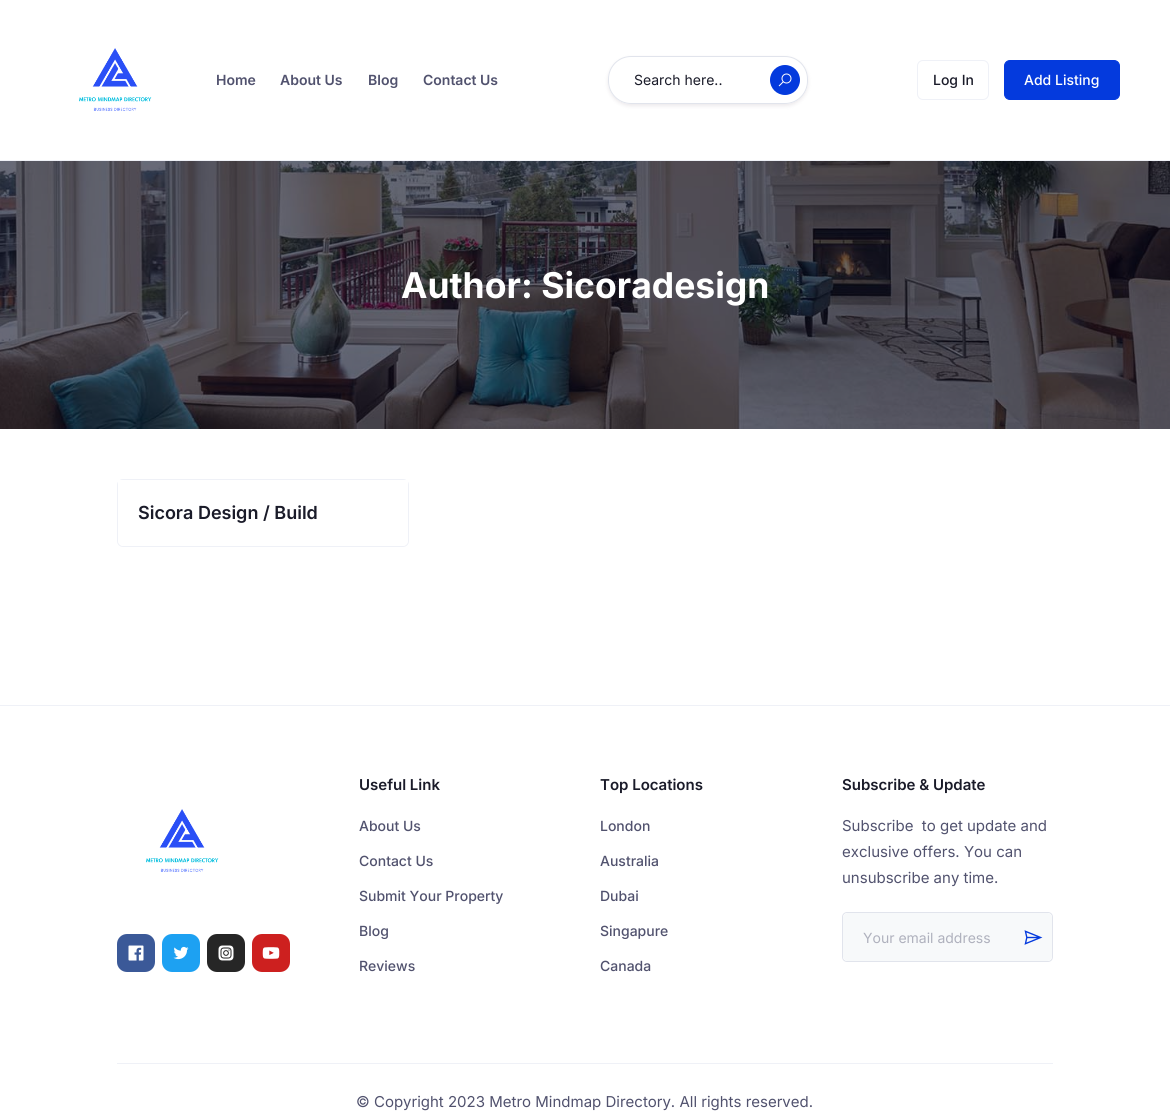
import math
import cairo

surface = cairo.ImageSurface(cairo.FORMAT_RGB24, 1170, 1113)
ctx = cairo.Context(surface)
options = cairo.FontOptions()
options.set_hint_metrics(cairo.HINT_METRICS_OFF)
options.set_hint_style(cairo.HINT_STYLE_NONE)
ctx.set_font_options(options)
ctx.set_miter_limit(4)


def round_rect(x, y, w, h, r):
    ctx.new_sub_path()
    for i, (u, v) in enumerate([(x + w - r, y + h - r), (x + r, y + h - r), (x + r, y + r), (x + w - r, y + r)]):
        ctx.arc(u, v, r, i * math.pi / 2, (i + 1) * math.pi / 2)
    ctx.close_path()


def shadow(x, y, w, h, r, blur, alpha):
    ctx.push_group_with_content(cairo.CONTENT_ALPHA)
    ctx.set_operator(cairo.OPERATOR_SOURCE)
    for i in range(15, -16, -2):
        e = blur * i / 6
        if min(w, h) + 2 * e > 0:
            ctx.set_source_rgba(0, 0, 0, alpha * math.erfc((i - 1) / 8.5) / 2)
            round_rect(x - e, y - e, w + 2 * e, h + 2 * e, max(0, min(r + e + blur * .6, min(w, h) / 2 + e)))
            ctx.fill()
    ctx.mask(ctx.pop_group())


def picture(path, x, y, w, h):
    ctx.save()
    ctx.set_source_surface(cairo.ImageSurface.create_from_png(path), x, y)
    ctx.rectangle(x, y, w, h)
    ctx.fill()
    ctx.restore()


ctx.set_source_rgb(1, 1, 1)
ctx.paint()
ctx.set_source_rgb(0.937, 0.945, 0.965)
ctx.rectangle(0, 160, 1170, 1)
ctx.fill()
picture("img1.png", 79, 48, 73, 63)
ctx.select_font_face("Inter SemiBold")
ctx.set_font_size(14)
ctx.set_source_rgb(0.318, 0.322, 0.431)
ctx.move_to(216, 85)
ctx.show_text("Home")
ctx.move_to(280, 85)
ctx.show_text("About Us")
ctx.move_to(368, 85)
ctx.show_text("Blog")
ctx.move_to(423, 85)
ctx.show_text("Contact Us")
ctx.save()
ctx.set_fill_rule(cairo.FILL_RULE_EVEN_ODD)
ctx.new_path()
ctx.move_to(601, 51)
ctx.line_to(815, 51)
ctx.line_to(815, 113)
ctx.line_to(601, 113)
ctx.close_path()
ctx.move_to(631, 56)
ctx.line_to(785, 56)
ctx.curve_to(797.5, 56, 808, 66.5, 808, 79)
ctx.line_to(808, 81)
ctx.curve_to(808, 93.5, 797.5, 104, 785, 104)
ctx.line_to(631, 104)
ctx.curve_to(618.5, 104, 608, 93.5, 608, 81)
ctx.line_to(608, 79)
ctx.curve_to(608, 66.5, 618.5, 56, 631, 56)
ctx.close_path()
ctx.clip()
ctx.set_source_rgb(0.624, 0.557, 0.604)
shadow(608, 58, 200, 48, 23, 2, 0.2)
ctx.restore()
round_rect(608.5, 56.5, 199, 47, 22.5)
ctx.set_source_rgb(0.882, 0.894, 0.925)
ctx.set_line_width(1)
ctx.stroke()
ctx.select_font_face("Inter")
ctx.set_source_rgb(0.102, 0.106, 0.161)
ctx.move_to(634, 85)
ctx.show_text("Search here..")
ctx.set_source_rgb(0.016, 0.227, 0.867)
ctx.new_path()
ctx.arc(785, 80, 15, 0, 2 * math.pi)
ctx.fill()
picture("img2.png", 778, 73, 14, 14)
round_rect(917.5, 60.5, 71, 39, 5.5)
ctx.set_source_rgb(0.937, 0.945, 0.965)
ctx.stroke()
ctx.select_font_face("Inter Medium")
ctx.set_source_rgb(0.102, 0.106, 0.161)
ctx.move_to(933, 85)
ctx.show_text("Log In")
ctx.set_source_rgb(0.016, 0.227, 0.867)
round_rect(1004.5, 60.5, 115, 39, 5.5)
ctx.fill_preserve()
ctx.stroke()
ctx.set_source_rgb(1, 1, 1)
ctx.move_to(1024, 85)
ctx.show_text("Add Listing")
picture("img3.png", 0, 161, 1170, 268)
ctx.select_font_face("Inter", cairo.FONT_SLANT_NORMAL, cairo.FONT_WEIGHT_BOLD)
ctx.set_font_size(35.5)
ctx.move_to(401, 298)
ctx.show_text("Author: Sicoradesign")
round_rect(117.5, 479.5, 291, 67, 5.5)
ctx.set_source_rgb(0.937, 0.945, 0.965)
ctx.stroke()
ctx.set_source_rgb(1, 1, 1)
ctx.new_path()
ctx.move_to(118, 480)
ctx.line_to(408, 480)
ctx.line_to(408, 540)
ctx.curve_to(408, 543.5, 405.5, 546, 402, 546)
ctx.line_to(124, 546)
ctx.curve_to(120.5, 546, 118, 543.5, 118, 540)
ctx.close_path()
ctx.fill()
ctx.select_font_face("Inter SemiBold")
ctx.set_font_size(18)
ctx.set_source_rgb(0.102, 0.106, 0.161)
ctx.move_to(138, 519)
ctx.show_text("Sicora Design / Build")
ctx.set_source_rgb(0.937, 0.945, 0.965)
ctx.rectangle(0, 705, 1170, 1)
ctx.fill()
picture("img4.png", 146, 809, 73, 63)
ctx.set_source_rgb(0.231, 0.349, 0.596)
round_rect(117, 934, 38, 38, 10)
ctx.fill()
picture("img5.png", 128, 945, 16, 16)
ctx.set_source_rgb(0.114, 0.631, 0.949)
round_rect(162, 934, 38, 38, 10)
ctx.fill()
picture("img6.png", 173, 946, 16, 14)
ctx.set_source_rgb(0.149, 0.149, 0.149)
round_rect(207, 934, 38, 38, 10)
ctx.fill()
picture("img7.png", 218, 945, 16, 16)
ctx.set_source_rgb(0.804, 0.125, 0.122)
round_rect(252, 934, 38, 38, 10)
ctx.fill()
picture("img8.png", 262, 947, 18, 12)
ctx.set_font_size(15)
ctx.set_source_rgb(0.102, 0.106, 0.161)
ctx.move_to(359, 790)
ctx.show_text("Useful Link")
ctx.select_font_face("Inter Medium")
ctx.set_font_size(14)
ctx.set_source_rgb(0.318, 0.322, 0.431)
ctx.move_to(359, 831)
ctx.show_text("About Us")
ctx.move_to(359, 866)
ctx.show_text("Contact Us")
ctx.move_to(359, 901)
ctx.show_text("Submit Your Property")
ctx.move_to(359, 936)
ctx.show_text("Blog")
ctx.move_to(359, 971)
ctx.show_text("Reviews")
ctx.select_font_face("Inter SemiBold")
ctx.set_font_size(15)
ctx.set_source_rgb(0.102, 0.106, 0.161)
ctx.move_to(600, 790)
ctx.show_text("Top Locations")
ctx.select_font_face("Inter Medium")
ctx.set_font_size(14)
ctx.set_source_rgb(0.318, 0.322, 0.431)
ctx.move_to(600, 831)
ctx.show_text("London")
ctx.move_to(600, 866)
ctx.show_text("Australia")
ctx.move_to(600, 901)
ctx.show_text("Dubai")
ctx.move_to(600, 936)
ctx.show_text("Singapure")
ctx.move_to(600, 971)
ctx.show_text("Canada")
ctx.select_font_face("Inter SemiBold")
ctx.set_font_size(15)
ctx.set_source_rgb(0.102, 0.106, 0.161)
ctx.move_to(842, 790)
ctx.show_text("Subscribe & Update")
ctx.select_font_face("Inter")
ctx.set_source_rgb(0.318, 0.322, 0.431)
ctx.move_to(842, 831)
ctx.show_text("Subscribe  to get update and")
ctx.move_to(842, 857)
ctx.show_text("exclusive offers. You can")
ctx.move_to(842, 883)
ctx.show_text("unsubscribe any time.")
round_rect(842.5, 912.5, 210, 49, 4.5)
ctx.set_source_rgb(0.882, 0.894, 0.925)
ctx.stroke()
ctx.set_source_rgb(0.965, 0.976, 0.98)
round_rect(843, 913, 209, 48, 5)
ctx.fill()
ctx.set_font_size(14)
ctx.set_source_rgb(0.686, 0.694, 0.741)
ctx.move_to(863, 943)
ctx.show_text("Your email address")
picture("img9.png", 1024, 930, 19, 15)
ctx.set_source_rgb(0.937, 0.945, 0.965)
ctx.rectangle(117, 1063, 936, 1)
ctx.fill()
ctx.set_font_size(15)
ctx.set_source_rgb(0.318, 0.322, 0.431)
ctx.move_to(356, 1107)
ctx.show_text("© Copyright 2023 Metro Mindmap Directory. All rights reserved.")
surface.write_to_png("page.png")
